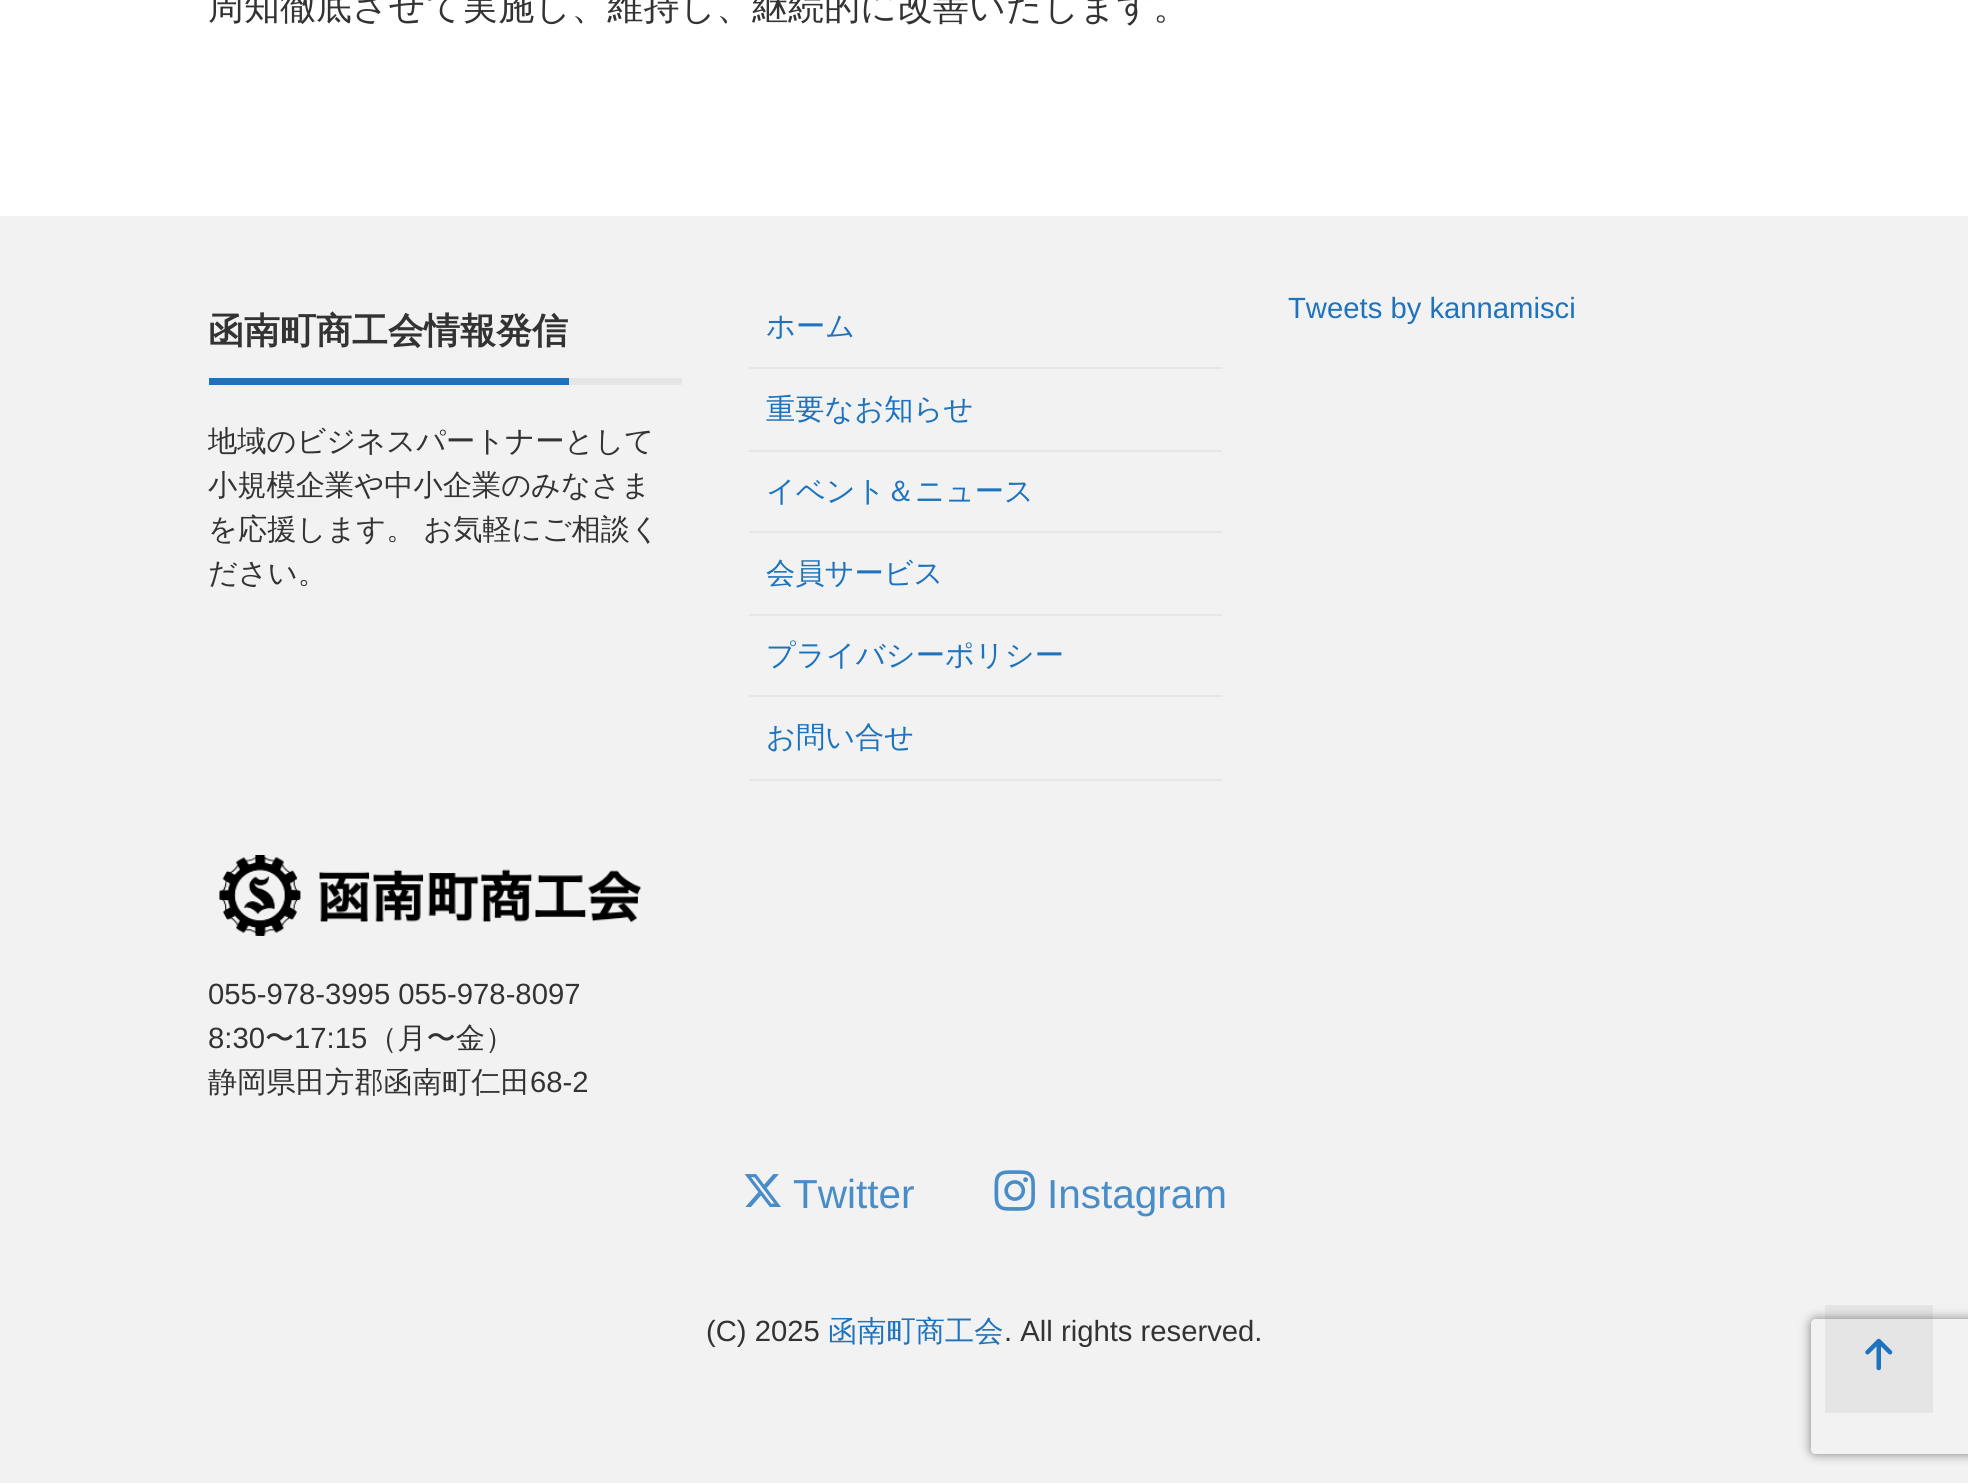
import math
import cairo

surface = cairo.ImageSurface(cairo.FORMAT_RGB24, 1968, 1483)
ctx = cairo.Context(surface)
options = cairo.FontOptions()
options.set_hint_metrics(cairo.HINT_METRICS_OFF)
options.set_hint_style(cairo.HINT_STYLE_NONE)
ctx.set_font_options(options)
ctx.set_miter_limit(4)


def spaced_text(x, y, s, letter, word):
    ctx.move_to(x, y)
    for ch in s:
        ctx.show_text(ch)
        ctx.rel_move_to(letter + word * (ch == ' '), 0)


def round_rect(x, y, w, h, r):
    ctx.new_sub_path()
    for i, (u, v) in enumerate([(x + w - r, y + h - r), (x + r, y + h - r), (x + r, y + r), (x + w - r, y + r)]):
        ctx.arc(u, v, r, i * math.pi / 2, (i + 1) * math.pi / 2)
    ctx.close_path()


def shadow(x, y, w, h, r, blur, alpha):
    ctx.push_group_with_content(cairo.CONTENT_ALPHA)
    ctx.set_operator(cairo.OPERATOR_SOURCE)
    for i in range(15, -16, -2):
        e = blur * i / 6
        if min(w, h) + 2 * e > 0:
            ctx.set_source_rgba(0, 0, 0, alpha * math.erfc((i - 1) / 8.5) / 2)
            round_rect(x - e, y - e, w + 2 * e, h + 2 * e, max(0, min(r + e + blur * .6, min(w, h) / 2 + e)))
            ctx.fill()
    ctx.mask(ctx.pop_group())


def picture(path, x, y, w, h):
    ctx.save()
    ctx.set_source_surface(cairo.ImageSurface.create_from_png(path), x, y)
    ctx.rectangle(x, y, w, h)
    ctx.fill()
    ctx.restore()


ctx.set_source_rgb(1, 1, 1)
ctx.paint()
ctx.select_font_face("WenQuanYi Zen Hei Medium")
ctx.set_font_size(36)
ctx.set_source_rgb(0.2, 0.2, 0.2)
ctx.move_to(208, 19)
ctx.show_text("周知徹底させて実施し、維持し、継続的に改善いたします。")
ctx.set_source_rgb(0.949, 0.949, 0.949)
ctx.rectangle(0, 216, 1968, 1267)
ctx.fill()
ctx.set_source_rgb(0.902, 0.902, 0.902)
ctx.rectangle(569, 378, 113, 7)
ctx.fill()
ctx.set_source_rgb(0.118, 0.451, 0.745)
ctx.rectangle(209, 378, 360, 7)
ctx.fill()
ctx.select_font_face("WenQuanYi Zen Hei", cairo.FONT_SLANT_NORMAL, cairo.FONT_WEIGHT_BOLD)
ctx.set_source_rgb(0.2, 0.2, 0.2)
ctx.move_to(208, 343)
ctx.show_text("函南町商工会情報発信")
ctx.select_font_face("WenQuanYi Zen Hei Medium")
ctx.set_font_size(29.25)
ctx.move_to(208, 451)
ctx.show_text("地域のビジネスパートナーとして")
ctx.move_to(208, 495)
ctx.show_text("小規模企業や中小企業のみなさま")
spaced_text(208, 539, "を応援します。 お気軽にご相談く", 0, -1)
ctx.move_to(208, 583)
ctx.show_text("ださい。")
ctx.set_source_rgb(0.902, 0.902, 0.902)
ctx.rectangle(749, 367, 473, 2)
ctx.fill()
ctx.set_source_rgb(0.118, 0.451, 0.745)
ctx.move_to(766, 336)
ctx.show_text("ホーム")
ctx.set_source_rgb(0.902, 0.902, 0.902)
ctx.rectangle(749, 450, 473, 2)
ctx.fill()
ctx.set_source_rgb(0.118, 0.451, 0.745)
ctx.move_to(766, 419)
ctx.show_text("重要なお知らせ")
ctx.set_source_rgb(0.902, 0.902, 0.902)
ctx.rectangle(749, 531, 473, 2)
ctx.fill()
ctx.set_source_rgb(0.118, 0.451, 0.745)
ctx.move_to(766, 501)
ctx.show_text("イベント＆ニュース")
ctx.set_source_rgb(0.902, 0.902, 0.902)
ctx.rectangle(749, 614, 473, 2)
ctx.fill()
ctx.set_source_rgb(0.118, 0.451, 0.745)
ctx.move_to(766, 583)
ctx.show_text("会員サービス")
ctx.set_source_rgb(0.902, 0.902, 0.902)
ctx.rectangle(749, 695, 473, 2)
ctx.fill()
ctx.set_source_rgb(0.118, 0.451, 0.745)
ctx.move_to(766, 665)
ctx.show_text("プライバシーポリシー")
ctx.set_source_rgb(0.902, 0.902, 0.902)
ctx.rectangle(749, 779, 473, 2)
ctx.fill()
ctx.set_source_rgb(0.118, 0.451, 0.745)
ctx.move_to(766, 747)
ctx.show_text("お問い合せ")
ctx.select_font_face("Liberation Sans")
ctx.move_to(1288, 318)
ctx.show_text("Tweets by kannamisci")
picture("img1.png", 219, 855, 423, 81)
ctx.set_source_rgb(0.2, 0.2, 0.2)
ctx.move_to(208, 1004)
ctx.show_text("055-978-3995 055-978-8097")
ctx.move_to(208, 1048)
ctx.show_text("8:30")
ctx.select_font_face("WenQuanYi Zen Hei Medium")
ctx.move_to(265, 1048)
ctx.show_text("〜")
ctx.select_font_face("Liberation Sans")
ctx.move_to(294, 1048)
ctx.show_text("17:15")
ctx.select_font_face("WenQuanYi Zen Hei Medium")
ctx.move_to(368, 1048)
ctx.show_text("（月〜金）")
ctx.move_to(208, 1092)
ctx.show_text("静岡県田方郡函南町仁田")
ctx.select_font_face("Liberation Sans")
ctx.move_to(530, 1092)
ctx.show_text("68-2")
picture("img2.png", 744, 1174, 37, 33)
ctx.set_font_size(40.5)
ctx.set_source_rgb(0.282, 0.549, 0.784)
ctx.move_to(793, 1208)
ctx.show_text("Twitter")
picture("img3.png", 994, 1170, 41, 41)
ctx.move_to(1047, 1208)
ctx.show_text("Instagram")
ctx.set_font_size(29.25)
ctx.set_source_rgb(0.2, 0.2, 0.2)
ctx.move_to(706, 1341)
ctx.show_text("(C) 2025")
ctx.select_font_face("WenQuanYi Zen Hei Medium")
ctx.set_source_rgb(0.118, 0.451, 0.745)
ctx.move_to(828, 1341)
ctx.show_text("函南町商工会")
ctx.select_font_face("Liberation Sans")
ctx.set_source_rgb(0.2, 0.2, 0.2)
ctx.move_to(1004, 1341)
ctx.show_text(". All rights reserved.")
ctx.save()
ctx.set_fill_rule(cairo.FILL_RULE_EVEN_ODD)
ctx.new_path()
ctx.move_to(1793, 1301)
ctx.line_to(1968, 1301)
ctx.line_to(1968, 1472)
ctx.line_to(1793, 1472)
ctx.close_path()
ctx.move_to(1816, 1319)
ctx.line_to(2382, 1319)
ctx.curve_to(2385, 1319, 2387, 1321, 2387, 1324)
ctx.line_to(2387, 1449)
ctx.curve_to(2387, 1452, 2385, 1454, 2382, 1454)
ctx.line_to(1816, 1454)
ctx.curve_to(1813, 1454, 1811, 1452, 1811, 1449)
ctx.line_to(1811, 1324)
ctx.curve_to(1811, 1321, 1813, 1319, 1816, 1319)
ctx.close_path()
ctx.clip()
ctx.set_source_rgb(0.502, 0.502, 0.502)
shadow(1811, 1319, 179, 135, 5, 5.5, 1)
ctx.restore()
ctx.set_source_rgba(0.467, 0.467, 0.467, 0.1)
ctx.rectangle(1825, 1305, 108, 108)
ctx.fill()
picture("img4.png", 1865, 1338, 28, 33)
surface.write_to_png("page.png")
